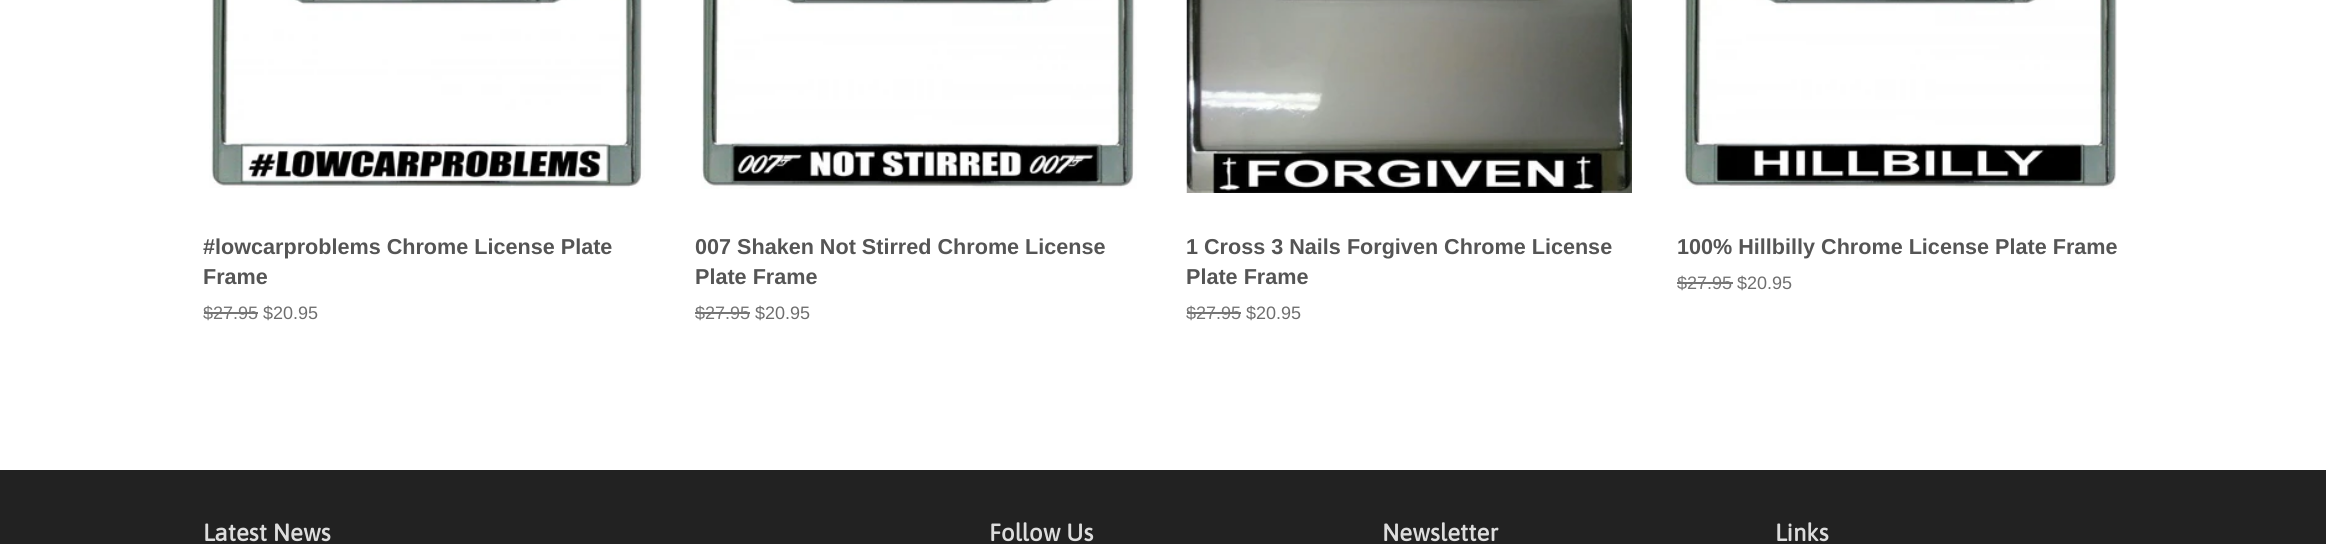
import math
import cairo

surface = cairo.ImageSurface(cairo.FORMAT_RGB24, 2326, 544)
ctx = cairo.Context(surface)
options = cairo.FontOptions()
options.set_hint_metrics(cairo.HINT_METRICS_OFF)
options.set_hint_style(cairo.HINT_STYLE_NONE)
ctx.set_font_options(options)
ctx.set_miter_limit(4)


def picture(path, x, y, w, h):
    ctx.save()
    ctx.set_source_surface(cairo.ImageSurface.create_from_png(path), x, y)
    ctx.rectangle(x, y, w, h)
    ctx.fill()
    ctx.restore()


ctx.set_source_rgb(1, 1, 1)
ctx.paint()
picture("img1.png", 209, 0, 436, 188)
ctx.select_font_face("Liberation Sans", cairo.FONT_SLANT_NORMAL, cairo.FONT_WEIGHT_BOLD)
ctx.set_font_size(21.6)
ctx.set_source_rgb(0.333, 0.333, 0.333)
ctx.move_to(203, 254)
ctx.show_text("#lowcarproblems Chrome License Plate")
ctx.move_to(203, 284)
ctx.show_text("Frame")
ctx.select_font_face("Liberation Sans")
ctx.set_font_size(18)
ctx.set_source_rgb(0.459, 0.459, 0.459)
ctx.move_to(203, 319)
ctx.show_text("$27.95")
ctx.rectangle(204, 312, 54, 2)
ctx.fill()
ctx.set_source_rgb(0.431, 0.431, 0.431)
ctx.move_to(263, 319)
ctx.show_text("$20.95")
picture("img2.png", 701, 0, 436, 189)
ctx.select_font_face("Liberation Sans", cairo.FONT_SLANT_NORMAL, cairo.FONT_WEIGHT_BOLD)
ctx.set_font_size(21.6)
ctx.set_source_rgb(0.333, 0.333, 0.333)
ctx.move_to(695, 254)
ctx.show_text("007 Shaken Not Stirred Chrome License")
ctx.move_to(695, 284)
ctx.show_text("Plate Frame")
ctx.select_font_face("Liberation Sans")
ctx.set_font_size(18)
ctx.set_source_rgb(0.459, 0.459, 0.459)
ctx.move_to(695, 319)
ctx.show_text("$27.95")
ctx.rectangle(695, 312, 55, 2)
ctx.fill()
ctx.set_source_rgb(0.431, 0.431, 0.431)
ctx.move_to(755, 319)
ctx.show_text("$20.95")
picture("img3.png", 1186, 0, 446, 193)
ctx.select_font_face("Liberation Sans", cairo.FONT_SLANT_NORMAL, cairo.FONT_WEIGHT_BOLD)
ctx.set_font_size(21.6)
ctx.set_source_rgb(0.333, 0.333, 0.333)
ctx.move_to(1186, 254)
ctx.show_text("1 Cross 3 Nails Forgiven Chrome License")
ctx.move_to(1186, 284)
ctx.show_text("Plate Frame")
ctx.select_font_face("Liberation Sans")
ctx.set_font_size(18)
ctx.set_source_rgb(0.459, 0.459, 0.459)
ctx.move_to(1186, 319)
ctx.show_text("$27.95")
ctx.rectangle(1187, 312, 54, 2)
ctx.fill()
ctx.set_source_rgb(0.431, 0.431, 0.431)
ctx.move_to(1246, 319)
ctx.show_text("$20.95")
picture("img4.png", 1682, 0, 435, 189)
ctx.select_font_face("Liberation Sans", cairo.FONT_SLANT_NORMAL, cairo.FONT_WEIGHT_BOLD)
ctx.set_font_size(21.6)
ctx.set_source_rgb(0.333, 0.333, 0.333)
ctx.move_to(1677, 254)
ctx.show_text("100% Hillbilly Chrome License Plate Frame")
ctx.select_font_face("Liberation Sans")
ctx.set_font_size(18)
ctx.set_source_rgb(0.459, 0.459, 0.459)
ctx.move_to(1677, 289)
ctx.show_text("$27.95")
ctx.rectangle(1677, 282, 56, 2)
ctx.fill()
ctx.set_source_rgb(0.431, 0.431, 0.431)
ctx.move_to(1737, 289)
ctx.show_text("$20.95")
ctx.set_source_rgb(0.133, 0.133, 0.133)
ctx.rectangle(0, 470, 2326, 74)
ctx.fill()
ctx.select_font_face("Asap", cairo.FONT_SLANT_NORMAL, cairo.FONT_WEIGHT_BOLD)
ctx.set_font_size(24)
ctx.set_source_rgb(0.867, 0.867, 0.867)
ctx.move_to(203, 541)
ctx.show_text("Latest News")
ctx.move_to(989, 541)
ctx.show_text("Follow Us")
ctx.move_to(1382, 541)
ctx.show_text("Newsletter")
ctx.move_to(1775, 541)
ctx.show_text("Links")
surface.write_to_png("page.png")
